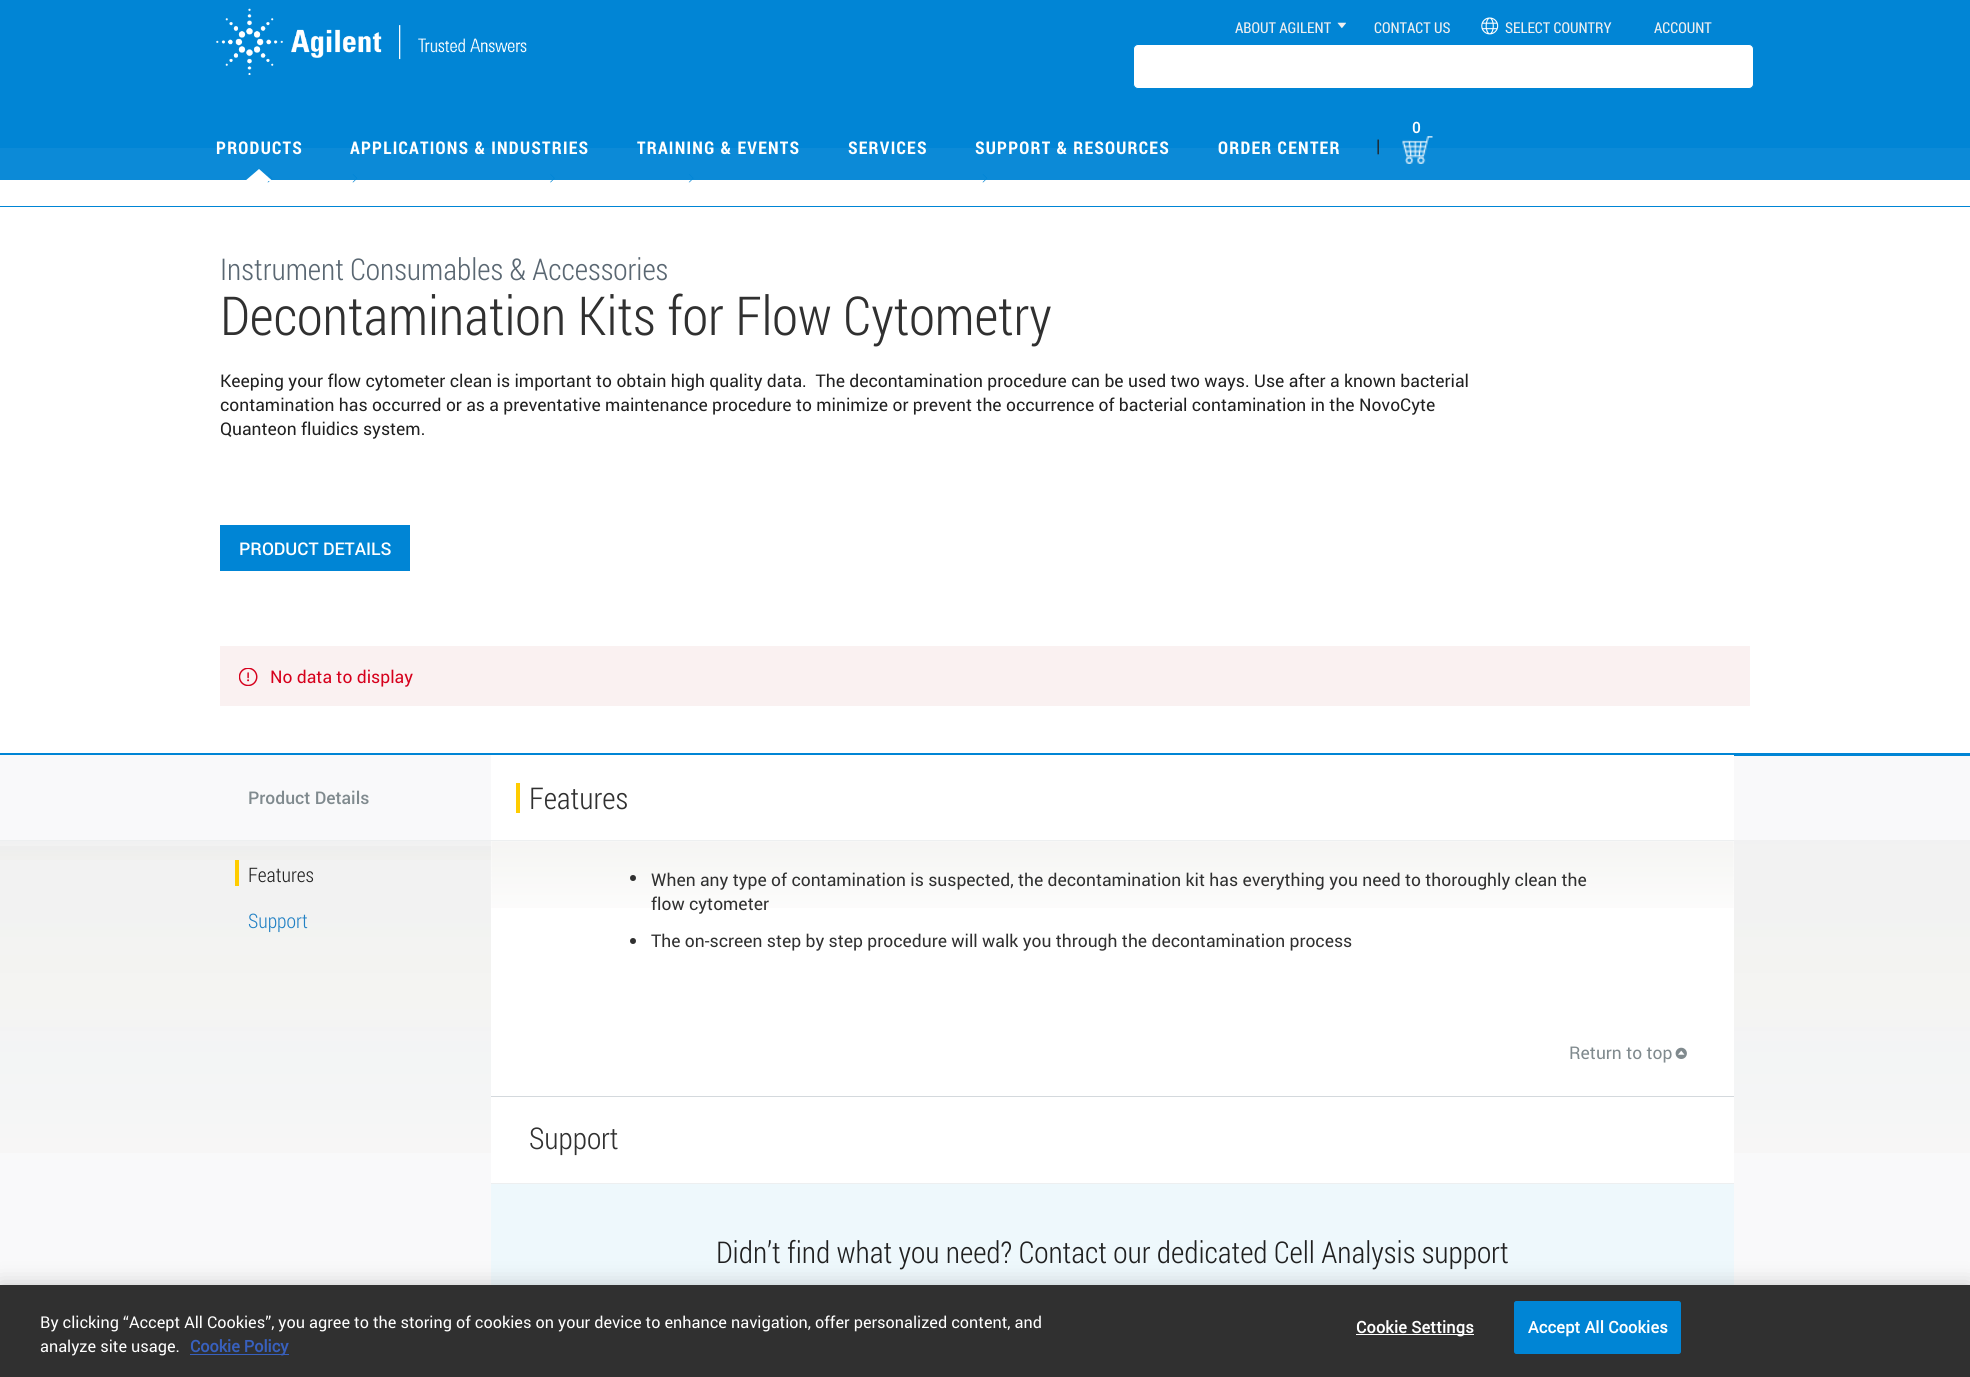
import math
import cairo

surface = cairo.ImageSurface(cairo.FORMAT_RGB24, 1970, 1377)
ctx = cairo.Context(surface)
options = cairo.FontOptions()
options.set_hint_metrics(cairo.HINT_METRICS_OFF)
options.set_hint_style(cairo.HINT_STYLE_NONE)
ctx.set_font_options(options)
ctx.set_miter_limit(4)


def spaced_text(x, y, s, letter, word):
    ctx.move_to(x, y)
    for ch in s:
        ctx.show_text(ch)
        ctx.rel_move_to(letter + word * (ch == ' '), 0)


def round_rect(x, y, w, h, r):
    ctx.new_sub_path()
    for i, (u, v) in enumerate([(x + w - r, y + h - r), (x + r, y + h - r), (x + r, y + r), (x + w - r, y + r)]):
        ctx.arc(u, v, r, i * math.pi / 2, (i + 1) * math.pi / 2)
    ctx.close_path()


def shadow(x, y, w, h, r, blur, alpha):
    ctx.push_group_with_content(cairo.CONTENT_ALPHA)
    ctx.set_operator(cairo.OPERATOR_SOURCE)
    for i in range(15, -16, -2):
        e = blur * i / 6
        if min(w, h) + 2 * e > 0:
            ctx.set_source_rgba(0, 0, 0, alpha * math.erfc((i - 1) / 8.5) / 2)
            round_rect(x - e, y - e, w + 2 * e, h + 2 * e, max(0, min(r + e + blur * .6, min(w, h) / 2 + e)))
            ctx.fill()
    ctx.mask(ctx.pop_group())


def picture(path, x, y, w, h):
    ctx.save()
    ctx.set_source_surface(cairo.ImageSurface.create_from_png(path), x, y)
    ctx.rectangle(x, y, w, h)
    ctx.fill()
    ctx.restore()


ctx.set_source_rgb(1, 1, 1)
ctx.paint()
ctx.set_source_rgb(0.102, 0.569, 0.851)
ctx.rectangle(0, 0, 1970, 148)
ctx.fill()
picture("img5.png", 267, 174, 6, 9)
picture("img5.png", 352, 174, 6, 9)
picture("img6.png", 550, 174, 5, 9)
picture("img7.png", 688, 174, 6, 9)
picture("img5.png", 982, 174, 6, 9)
ctx.set_source_rgba(0, 0.522, 0.835, 0.95)
ctx.rectangle(0, 0, 1970, 180)
ctx.fill()
picture("img1.png", 216, 8, 311, 67)
ctx.select_font_face("Roboto Condensed")
ctx.set_font_size(15)
ctx.set_source_rgb(0.937, 0.937, 0.941)
ctx.move_to(1235, 33)
ctx.show_text("ABOUT AGILENT")
picture("img2.png", 1337, 22, 9, 7)
ctx.move_to(1374, 33)
ctx.show_text("CONTACT US")
picture("img3.png", 1481, 17, 18, 18)
ctx.move_to(1505, 33)
ctx.show_text("SELECT COUNTRY")
ctx.move_to(1654, 33)
ctx.show_text("ACCOUNT")
ctx.set_source_rgb(1, 1, 1)
round_rect(1133.5, 44.5, 620, 44, 4.5)
ctx.fill_preserve()
ctx.set_source_rgb(0, 0.522, 0.835)
ctx.set_line_width(1)
ctx.stroke()
ctx.select_font_face("Roboto", cairo.FONT_SLANT_NORMAL, cairo.FONT_WEIGHT_BOLD)
ctx.set_source_rgb(1, 1, 1)
spaced_text(1412, 133, "0", 1.25, 0)
picture("img4.png", 1402, 136, 31, 28)
ctx.select_font_face("Roboto Condensed", cairo.FONT_SLANT_NORMAL, cairo.FONT_WEIGHT_BOLD)
ctx.set_font_size(17.5)
spaced_text(216, 154, "PRODUCTS", 1.25, 0)
ctx.new_path()
ctx.move_to(272.5, 181)
ctx.line_to(245, 181)
ctx.line_to(259, 169)
ctx.close_path()
ctx.fill()
spaced_text(350, 154, "APPLICATIONS & INDUSTRIES", 1.25, 0)
spaced_text(637, 154, "TRAINING & EVENTS", 1.25, 0)
spaced_text(848, 154, "SERVICES", 1.25, 0)
spaced_text(975, 154, "SUPPORT & RESOURCES", 1.25, 0)
spaced_text(1218, 154, "ORDER CENTER", 1.25, 0)
ctx.select_font_face("Roboto")
ctx.set_source_rgb(0.125, 0.125, 0.125)
ctx.move_to(1376, 152)
ctx.show_text("|")
ctx.set_source_rgb(0, 0.522, 0.835)
ctx.rectangle(0, 206, 1970, 1)
ctx.fill()
ctx.select_font_face("Roboto Condensed Light")
ctx.set_font_size(30)
ctx.set_source_rgb(0.353, 0.404, 0.447)
ctx.move_to(220, 280)
ctx.show_text("Instrument Consumables & Accessories")
ctx.set_font_size(53.75)
ctx.set_source_rgb(0.188, 0.188, 0.188)
ctx.move_to(220, 335)
ctx.show_text("Decontamination Kits for Flow Cytometry")
ctx.select_font_face("Roboto")
ctx.set_font_size(17.5)
ctx.set_source_rgb(0.125, 0.125, 0.125)
ctx.move_to(220, 387)
ctx.show_text("Keeping your flow cytometer clean is important to obtain high quality data.  The decontamination procedure can be used two ways. Use after a known bacterial")
ctx.move_to(220, 411)
ctx.show_text("contamination has occurred or as a preventative maintenance procedure to minimize or prevent the occurrence of bacterial contamination in the NovoCyte")
ctx.move_to(220, 435)
ctx.show_text("Quanteon fluidics system.")
ctx.set_source_rgb(0, 0.522, 0.835)
ctx.rectangle(220, 525, 190, 46)
ctx.fill()
ctx.select_font_face("Roboto Medium")
ctx.set_source_rgb(1, 1, 1)
ctx.move_to(239, 555)
ctx.show_text("PRODUCT DETAILS")
ctx.set_source_rgb(0.98, 0.945, 0.945)
ctx.rectangle(220, 646, 1530, 60)
ctx.fill()
picture("img8.png", 239, 668, 19, 18)
ctx.select_font_face("Roboto")
ctx.set_source_rgb(0.839, 0, 0.11)
ctx.move_to(270, 683)
ctx.show_text("No data to display")
ctx.set_source_rgb(0.976, 0.976, 0.98)
ctx.rectangle(0, 756, 1970, 529)
ctx.fill()
picture("img9.png", 0, 840, 1970, 313)
ctx.set_source_rgb(0, 0.522, 0.835)
ctx.rectangle(0, 753, 1970, 3)
ctx.fill()
ctx.set_source_rgb(0.976, 0.976, 0.98)
ctx.rectangle(0, 755, 491, 1)
ctx.fill()
ctx.set_source_rgb(1, 1, 1)
ctx.rectangle(491, 755, 1243, 428)
ctx.fill()
ctx.set_source_rgb(0.929, 0.937, 0.941)
ctx.rectangle(0, 840, 1734, 1)
ctx.fill()
ctx.select_font_face("Roboto Medium")
ctx.set_source_rgb(0.502, 0.541, 0.557)
ctx.move_to(248, 804)
ctx.show_text("Product Details")
picture("img10.png", 0, 846, 491, 14)
ctx.select_font_face("Roboto Condensed Light")
ctx.set_font_size(20)
ctx.set_source_rgb(0.125, 0.125, 0.125)
ctx.move_to(248, 882)
ctx.show_text("Features")
ctx.set_source_rgb(1, 0.8, 0)
ctx.rectangle(235, 860, 4, 26)
ctx.fill()
ctx.set_source_rgb(0.133, 0.506, 0.769)
ctx.move_to(248, 928)
ctx.show_text("Support")
picture("img11.png", 491, 841, 1243, 67)
ctx.set_source_rgb(0.831, 0.851, 0.867)
ctx.rectangle(491, 1096, 1243, 1)
ctx.fill()
ctx.set_source_rgb(1, 0.8, 0)
ctx.rectangle(516, 783, 4, 30)
ctx.fill()
ctx.set_font_size(30)
ctx.set_source_rgb(0.188, 0.188, 0.188)
ctx.move_to(529, 809)
ctx.show_text("Features")
ctx.new_path()
ctx.arc(633, 878, 3, 0, 2 * math.pi)
ctx.fill()
ctx.select_font_face("Roboto")
ctx.set_font_size(17.5)
ctx.move_to(651, 886)
ctx.show_text("When any type of contamination is suspected, the decontamination kit has everything you need to thoroughly clean the")
ctx.move_to(651, 910)
ctx.show_text("flow cytometer")
ctx.new_path()
ctx.arc(633, 941, 3, 0, 2 * math.pi)
ctx.fill()
ctx.move_to(651, 947)
ctx.show_text("The on-screen step by step procedure will walk you through the decontamination process")
ctx.set_source_rgb(0.502, 0.541, 0.557)
ctx.move_to(1569, 1059)
ctx.show_text("Return to top")
picture("img12.png", 1675, 1047, 12, 12)
ctx.set_source_rgb(0.929, 0.937, 0.941)
ctx.rectangle(491, 1183, 1243, 1)
ctx.fill()
ctx.select_font_face("Roboto Condensed Light")
ctx.set_font_size(30)
ctx.set_source_rgb(0.188, 0.188, 0.188)
ctx.move_to(529, 1149)
ctx.show_text("Support")
ctx.set_source_rgb(0.933, 0.969, 0.988)
ctx.rectangle(491, 1184, 1243, 101)
ctx.fill()
ctx.set_source_rgb(0.125, 0.125, 0.125)
ctx.move_to(716, 1263)
ctx.show_text("Didn’t find what you need? Contact our dedicated Cell Analysis support")
ctx.set_source_rgb(0, 0, 0)
shadow(0, 1285, 1970, 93, 0, 11, 0.2)
ctx.set_source_rgb(0.188, 0.188, 0.188)
ctx.rectangle(0, 1285, 1970, 92)
ctx.fill()
ctx.select_font_face("Roboto")
ctx.set_font_size(16.25)
ctx.set_source_rgb(1, 1, 1)
ctx.move_to(40, 1328)
ctx.show_text("By clicking “Accept All Cookies”, you agree to the storing of cookies on your device to enhance navigation, offer personalized content, and")
ctx.move_to(40, 1352)
ctx.show_text("analyze site usage.")
ctx.set_source_rgb(0.22, 0.376, 0.745)
ctx.rectangle(190, 1354, 99, 1)
ctx.fill()
ctx.select_font_face("Roboto", cairo.FONT_SLANT_NORMAL, cairo.FONT_WEIGHT_BOLD)
ctx.move_to(190, 1352)
ctx.show_text("Cookie Policy")
ctx.set_source_rgb(1, 1, 1)
ctx.rectangle(1356, 1334, 118, 1)
ctx.fill()
spaced_text(1356, 1333, "Cookie Settings", 0.2, 0)
ctx.set_source_rgb(0, 0.522, 0.835)
round_rect(1514.5, 1301.5, 166, 52, 2)
ctx.fill_preserve()
ctx.stroke()
ctx.set_source_rgb(1, 1, 1)
spaced_text(1528, 1333, "Accept All Cookies", 0.2, 0)
surface.write_to_png("page.png")
